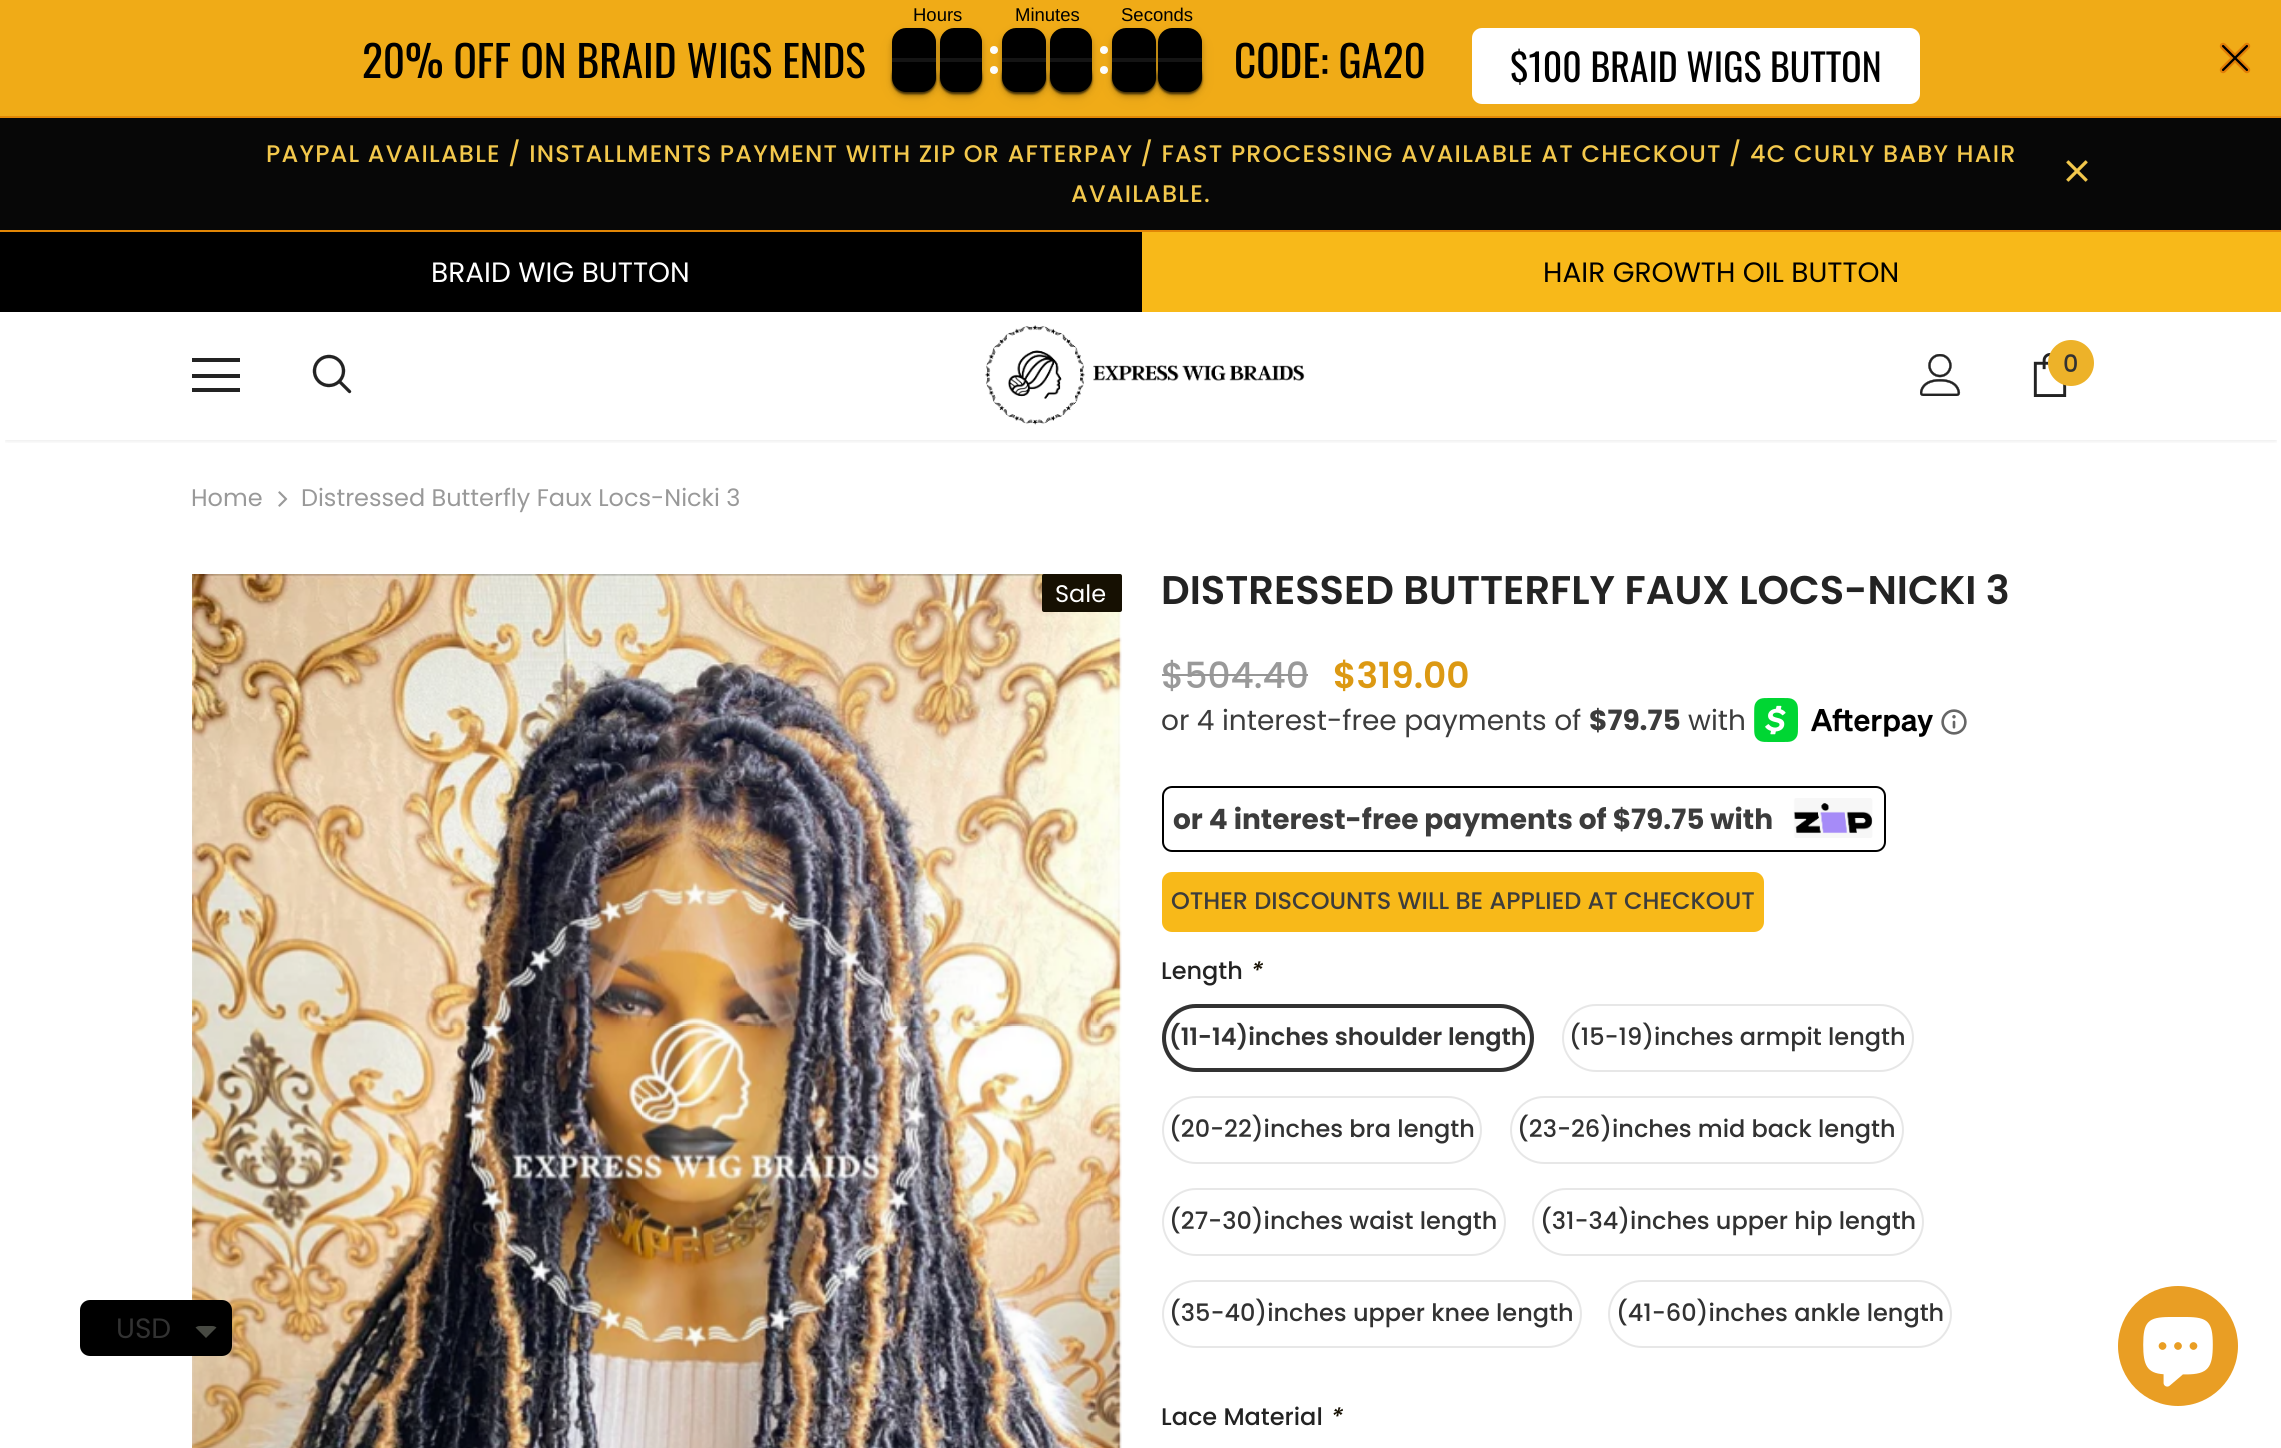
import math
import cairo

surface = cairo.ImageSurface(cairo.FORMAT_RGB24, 2281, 1448)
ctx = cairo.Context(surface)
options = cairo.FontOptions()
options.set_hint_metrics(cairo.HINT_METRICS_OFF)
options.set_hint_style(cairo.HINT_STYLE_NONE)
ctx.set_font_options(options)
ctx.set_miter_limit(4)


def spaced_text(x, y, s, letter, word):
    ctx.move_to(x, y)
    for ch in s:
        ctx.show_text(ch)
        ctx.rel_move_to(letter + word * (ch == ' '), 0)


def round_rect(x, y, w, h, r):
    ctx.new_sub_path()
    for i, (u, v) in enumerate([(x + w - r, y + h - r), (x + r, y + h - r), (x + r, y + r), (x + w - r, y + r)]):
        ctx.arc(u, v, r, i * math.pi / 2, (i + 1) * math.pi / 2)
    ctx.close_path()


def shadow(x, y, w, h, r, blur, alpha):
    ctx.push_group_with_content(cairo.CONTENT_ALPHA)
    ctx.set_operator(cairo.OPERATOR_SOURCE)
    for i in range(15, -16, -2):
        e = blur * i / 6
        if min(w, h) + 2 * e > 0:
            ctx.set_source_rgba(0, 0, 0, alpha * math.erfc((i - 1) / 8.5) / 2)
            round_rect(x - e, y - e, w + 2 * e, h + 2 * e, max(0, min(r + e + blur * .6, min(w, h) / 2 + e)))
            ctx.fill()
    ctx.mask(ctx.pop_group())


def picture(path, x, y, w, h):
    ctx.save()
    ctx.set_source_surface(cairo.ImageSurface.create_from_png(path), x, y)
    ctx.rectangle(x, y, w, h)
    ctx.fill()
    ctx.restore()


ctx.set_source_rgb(1, 1, 1)
ctx.paint()
ctx.set_source_rgb(0.941, 0.671, 0.09)
ctx.rectangle(0, 0, 2281, 116)
ctx.fill()
ctx.set_source_rgb(0.886, 0.529, 0.024)
ctx.rectangle(0, 116, 2281, 2)
ctx.fill()
ctx.set_source_rgb(0.031, 0.031, 0.031)
ctx.rectangle(0, 118, 2281, 112)
ctx.fill()
ctx.set_source_rgb(0, 0, 0)
shadow(892, 34, 44, 64, 14, 8, 0.05)
shadow(940, 34, 42, 64, 14, 8, 0.05)
ctx.select_font_face("Liberation Sans")
ctx.set_font_size(18.5)
ctx.set_source_rgb(0, 0, 0)
ctx.move_to(913, 21)
ctx.show_text("Hours")
ctx.set_source_rgb(0, 0, 0)
shadow(892, 32, 44, 64, 14, 3, 0.24)
shadow(892, 62, 44, 32, 14, 1, 0.4)
shadow(940, 32, 42, 64, 14, 3, 0.24)
ctx.set_source_rgb(0, 0, 0)
ctx.new_path()
ctx.move_to(906, 28)
ctx.line_to(922, 28)
ctx.curve_to(929.5, 28, 936, 34.5, 936, 42)
ctx.line_to(936, 60)
ctx.line_to(892, 60)
ctx.line_to(892, 42)
ctx.curve_to(892, 34.5, 898.5, 28, 906, 28)
ctx.close_path()
ctx.fill()
ctx.set_source_rgba(0.2, 0.2, 0.2, 0.4)
ctx.rectangle(892, 58, 44, 2)
ctx.fill()
ctx.set_source_rgb(0, 0, 0)
shadow(892, 62, 44, 32, 14, 1, 0.4)
ctx.set_source_rgb(0, 0, 0)
ctx.new_path()
ctx.move_to(892, 60)
ctx.line_to(936, 60)
ctx.line_to(936, 78)
ctx.curve_to(936, 85.5, 929.5, 92, 922, 92)
ctx.line_to(906, 92)
ctx.curve_to(898.5, 92, 892, 85.5, 892, 78)
ctx.close_path()
ctx.fill()
ctx.set_source_rgba(0.8, 0.8, 0.8, 0.1)
ctx.rectangle(892, 60, 44, 2)
ctx.fill()
ctx.set_source_rgb(0, 0, 0)
shadow(940, 62, 42, 32, 14, 1, 0.4)
ctx.set_source_rgb(1, 1, 1)
ctx.arc(994, 50, 4, 0, 2 * math.pi)
ctx.fill()
ctx.arc(994, 70, 4, 0, 2 * math.pi)
ctx.fill()
ctx.set_source_rgb(0, 0, 0)
shadow(1002, 34, 44, 64, 14, 8, 0.05)
ctx.set_source_rgb(0, 0, 0)
ctx.new_path()
ctx.move_to(954, 28)
ctx.line_to(968, 28)
ctx.curve_to(975.5, 28, 982, 34.5, 982, 42)
ctx.line_to(982, 60)
ctx.line_to(940, 60)
ctx.line_to(940, 42)
ctx.curve_to(940, 34.5, 946.5, 28, 954, 28)
ctx.close_path()
ctx.fill()
ctx.set_source_rgba(0.2, 0.2, 0.2, 0.4)
ctx.rectangle(940, 58, 42, 2)
ctx.fill()
ctx.set_source_rgb(0, 0, 0)
shadow(940, 62, 42, 32, 14, 1, 0.4)
ctx.set_source_rgb(0, 0, 0)
ctx.new_path()
ctx.move_to(940, 60)
ctx.line_to(982, 60)
ctx.line_to(982, 78)
ctx.curve_to(982, 85.5, 975.5, 92, 968, 92)
ctx.line_to(954, 92)
ctx.curve_to(946.5, 92, 940, 85.5, 940, 78)
ctx.close_path()
ctx.fill()
ctx.set_source_rgba(0.8, 0.8, 0.8, 0.1)
ctx.rectangle(940, 60, 42, 2)
ctx.fill()
ctx.set_source_rgb(0, 0, 0)
shadow(1050, 34, 42, 64, 14, 8, 0.05)
ctx.set_source_rgb(0, 0, 0)
ctx.move_to(1015, 21)
ctx.show_text("Minutes")
ctx.set_source_rgb(0, 0, 0)
shadow(1002, 32, 44, 64, 14, 3, 0.24)
shadow(1002, 62, 44, 32, 14, 1, 0.4)
shadow(1050, 32, 42, 64, 14, 3, 0.24)
ctx.set_source_rgb(0, 0, 0)
ctx.new_path()
ctx.move_to(1016, 28)
ctx.line_to(1032, 28)
ctx.curve_to(1039.5, 28, 1046, 34.5, 1046, 42)
ctx.line_to(1046, 60)
ctx.line_to(1002, 60)
ctx.line_to(1002, 42)
ctx.curve_to(1002, 34.5, 1008.5, 28, 1016, 28)
ctx.close_path()
ctx.fill()
ctx.set_source_rgba(0.2, 0.2, 0.2, 0.4)
ctx.rectangle(1002, 58, 44, 2)
ctx.fill()
ctx.set_source_rgb(0, 0, 0)
shadow(1002, 62, 44, 32, 14, 1, 0.4)
ctx.set_source_rgb(0, 0, 0)
ctx.new_path()
ctx.move_to(1002, 60)
ctx.line_to(1046, 60)
ctx.line_to(1046, 78)
ctx.curve_to(1046, 85.5, 1039.5, 92, 1032, 92)
ctx.line_to(1016, 92)
ctx.curve_to(1008.5, 92, 1002, 85.5, 1002, 78)
ctx.close_path()
ctx.fill()
ctx.set_source_rgba(0.8, 0.8, 0.8, 0.1)
ctx.rectangle(1002, 60, 44, 2)
ctx.fill()
ctx.set_source_rgb(0, 0, 0)
shadow(1050, 62, 42, 32, 14, 1, 0.4)
ctx.set_source_rgb(1, 1, 1)
ctx.arc(1104, 50, 4, 0, 2 * math.pi)
ctx.fill()
ctx.arc(1104, 70, 4, 0, 2 * math.pi)
ctx.fill()
ctx.set_source_rgb(0, 0, 0)
shadow(1112, 34, 44, 64, 14, 8, 0.05)
ctx.set_source_rgb(0, 0, 0)
ctx.new_path()
ctx.move_to(1064, 28)
ctx.line_to(1078, 28)
ctx.curve_to(1085.5, 28, 1092, 34.5, 1092, 42)
ctx.line_to(1092, 60)
ctx.line_to(1050, 60)
ctx.line_to(1050, 42)
ctx.curve_to(1050, 34.5, 1056.5, 28, 1064, 28)
ctx.close_path()
ctx.fill()
ctx.set_source_rgba(0.2, 0.2, 0.2, 0.4)
ctx.rectangle(1050, 58, 42, 2)
ctx.fill()
ctx.set_source_rgb(0, 0, 0)
shadow(1050, 62, 42, 32, 14, 1, 0.4)
ctx.set_source_rgb(0, 0, 0)
ctx.new_path()
ctx.move_to(1050, 60)
ctx.line_to(1092, 60)
ctx.line_to(1092, 78)
ctx.curve_to(1092, 85.5, 1085.5, 92, 1078, 92)
ctx.line_to(1064, 92)
ctx.curve_to(1056.5, 92, 1050, 85.5, 1050, 78)
ctx.close_path()
ctx.fill()
ctx.set_source_rgba(0.8, 0.8, 0.8, 0.1)
ctx.rectangle(1050, 60, 42, 2)
ctx.fill()
ctx.set_source_rgb(0, 0, 0)
shadow(1158, 34, 44, 64, 14, 8, 0.05)
ctx.set_source_rgb(0, 0, 0)
ctx.move_to(1121, 21)
ctx.show_text("Seconds")
ctx.set_source_rgb(0, 0, 0)
shadow(1112, 32, 44, 64, 14, 3, 0.24)
shadow(1112, 62, 44, 32, 14, 1, 0.4)
shadow(1158, 32, 44, 64, 14, 3, 0.24)
shadow(1158, 62, 44, 32, 14, 1, 0.4)
ctx.set_source_rgb(0, 0, 0)
ctx.new_path()
ctx.move_to(1126, 28)
ctx.line_to(1142, 28)
ctx.curve_to(1149.5, 28, 1156, 34.5, 1156, 42)
ctx.line_to(1156, 60)
ctx.line_to(1112, 60)
ctx.line_to(1112, 42)
ctx.curve_to(1112, 34.5, 1118.5, 28, 1126, 28)
ctx.close_path()
ctx.fill()
ctx.set_source_rgba(0.2, 0.2, 0.2, 0.4)
ctx.rectangle(1112, 58, 44, 2)
ctx.fill()
ctx.set_source_rgb(0, 0, 0)
shadow(1112, 62, 44, 32, 14, 1, 0.4)
ctx.set_source_rgb(0, 0, 0)
ctx.new_path()
ctx.move_to(1112, 60)
ctx.line_to(1156, 60)
ctx.line_to(1156, 78)
ctx.curve_to(1156, 85.5, 1149.5, 92, 1142, 92)
ctx.line_to(1126, 92)
ctx.curve_to(1118.5, 92, 1112, 85.5, 1112, 78)
ctx.close_path()
ctx.fill()
ctx.set_source_rgba(0.8, 0.8, 0.8, 0.1)
ctx.rectangle(1112, 60, 44, 2)
ctx.fill()
ctx.set_source_rgb(0, 0, 0)
ctx.new_path()
ctx.move_to(1172, 28)
ctx.line_to(1188, 28)
ctx.curve_to(1195.5, 28, 1202, 34.5, 1202, 42)
ctx.line_to(1202, 60)
ctx.line_to(1158, 60)
ctx.line_to(1158, 42)
ctx.curve_to(1158, 34.5, 1164.5, 28, 1172, 28)
ctx.close_path()
ctx.fill()
ctx.set_source_rgba(0.2, 0.2, 0.2, 0.4)
ctx.rectangle(1158, 58, 44, 2)
ctx.fill()
ctx.set_source_rgb(0, 0, 0)
shadow(1158, 62, 44, 32, 14, 1, 0.4)
ctx.set_source_rgb(0, 0, 0)
ctx.new_path()
ctx.move_to(1158, 60)
ctx.line_to(1202, 60)
ctx.line_to(1202, 78)
ctx.curve_to(1202, 85.5, 1195.5, 92, 1188, 92)
ctx.line_to(1172, 92)
ctx.curve_to(1164.5, 92, 1158, 85.5, 1158, 78)
ctx.close_path()
ctx.fill()
ctx.set_source_rgba(0.8, 0.8, 0.8, 0.1)
ctx.rectangle(1158, 60, 44, 2)
ctx.fill()
ctx.select_font_face("Oswald")
ctx.set_font_size(43.25)
ctx.set_source_rgb(0, 0, 0)
ctx.move_to(362, 78)
ctx.show_text("20% OFF ON BRAID WIGS ENDS")
ctx.move_to(1234, 78)
ctx.show_text("CODE: GA20")
ctx.set_source_rgb(1, 1, 1)
round_rect(1472, 28, 448, 76, 10)
ctx.fill()
ctx.set_font_size(37.75)
ctx.set_source_rgb(0, 0, 0)
ctx.move_to(1510, 82)
ctx.show_text("$100 BRAID WIGS BUTTON")
picture("img1.png", 2219, 42, 32, 32)
ctx.select_font_face("Poppins Medium")
ctx.set_font_size(24)
ctx.set_source_rgb(0.953, 0.784, 0.298)
spaced_text(266, 162, "PAYPAL AVAILABLE / INSTALLMENTS PAYMENT WITH ZIP OR AFTERPAY / FAST PROCESSING AVAILABLE AT CHECKOUT / 4C CURLY BABY HAIR", 1.2, 0)
spaced_text(1071, 202, "AVAILABLE.", 1.2, 0)
picture("img2.png", 2066, 160, 22, 22)
ctx.save()
ctx.rectangle(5, 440, 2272, 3)
ctx.clip()
ctx.set_source_rgb(0, 0, 0)
shadow(6, 242, 2270, 198, 0, 3, 0.12)
ctx.restore()
ctx.set_source_rgb(0.886, 0.529, 0.024)
ctx.rectangle(0, 230, 2281, 2)
ctx.fill()
ctx.set_source_rgb(0, 0, 0)
ctx.rectangle(0, 232, 1142, 80)
ctx.fill()
ctx.select_font_face("Poppins")
ctx.set_font_size(28)
ctx.set_source_rgb(1, 1, 1)
ctx.move_to(431, 282)
ctx.show_text("BRAID WIG BUTTON")
ctx.set_source_rgb(0.969, 0.725, 0.098)
ctx.rectangle(1142, 232, 1139, 80)
ctx.fill()
ctx.set_source_rgb(0, 0, 0)
ctx.move_to(1543, 282)
ctx.show_text("HAIR GROWTH OIL BUTTON")
ctx.set_source_rgb(0.137, 0.137, 0.137)
ctx.rectangle(192, 358, 48, 4)
ctx.fill()
ctx.rectangle(192, 374, 48, 4)
ctx.fill()
ctx.rectangle(192, 388, 48, 4)
ctx.fill()
picture("img3.png", 312, 354, 40, 40)
picture("img4.png", 985, 325, 320, 100)
picture("img5.png", 1920, 354, 41, 42)
picture("img6.png", 2033, 353, 34, 44)
ctx.set_source_rgb(0.929, 0.698, 0.161)
ctx.arc(2071, 363, 23, 0, 2 * math.pi)
ctx.fill()
ctx.select_font_face("Poppins Medium")
ctx.set_font_size(24)
ctx.set_source_rgb(0.196, 0.196, 0.196)
ctx.move_to(2063, 372)
ctx.show_text("0")
picture("img8.png", 192, 574, 930, 874)
ctx.set_source_rgb(0, 0, 0)
round_rect(80, 1300, 152, 56, 10)
ctx.fill()
ctx.select_font_face("Poppins")
ctx.set_font_size(28)
ctx.set_source_rgb(0.196, 0.196, 0.196)
ctx.move_to(116, 1338)
ctx.show_text("USD")
ctx.set_source_rgb(0.278, 0.286, 0.259)
ctx.new_path()
ctx.move_to(200, 1326)
ctx.curve_to(198, 1326, 197, 1326.5, 195.5, 1327.5)
ctx.line_to(206, 1338)
ctx.line_to(216.5, 1327.5)
ctx.curve_to(215, 1326.5, 214, 1326, 212, 1326)
ctx.close_path()
ctx.fill()
ctx.set_font_size(24)
ctx.set_source_rgb(0.6, 0.6, 0.6)
ctx.move_to(191, 506)
ctx.show_text("Home")
picture("img7.png", 278, 491, 10, 16)
ctx.move_to(301, 506)
ctx.show_text("Distressed Butterfly Faux Locs-Nicki 3")
ctx.set_source_rgb(0.086, 0.063, 0.008)
round_rect(1042, 574, 80, 38, 2)
ctx.fill()
ctx.set_source_rgb(1, 1, 1)
ctx.move_to(1055, 602)
ctx.show_text("Sale")
ctx.select_font_face("Poppins SemiBold")
ctx.set_font_size(40)
ctx.set_source_rgb(0.137, 0.137, 0.137)
ctx.move_to(1161, 604)
ctx.show_text("DISTRESSED BUTTERFLY FAUX LOCS-NICKI 3")
ctx.select_font_face("Poppins Medium")
ctx.set_font_size(36)
ctx.set_source_rgb(0.6, 0.6, 0.6)
ctx.move_to(1161, 688)
ctx.show_text("$504.40")
ctx.set_source_rgb(0.588, 0.588, 0.588)
ctx.rectangle(1162, 674, 146, 2)
ctx.fill()
ctx.select_font_face("Poppins SemiBold")
ctx.set_source_rgb(0.863, 0.6, 0.078)
ctx.move_to(1333, 688)
ctx.show_text("$319.00")
ctx.select_font_face("Poppins")
ctx.set_font_size(28)
ctx.set_source_rgb(0.235, 0.235, 0.235)
ctx.move_to(1161, 730)
ctx.show_text("or 4 interest-free payments of")
ctx.select_font_face("Poppins", cairo.FONT_SLANT_NORMAL, cairo.FONT_WEIGHT_BOLD)
ctx.move_to(1589, 730)
ctx.show_text("$79.75")
ctx.select_font_face("Poppins")
ctx.move_to(1688, 730)
ctx.show_text("with")
picture("img9.png", 1754, 698, 179, 44)
picture("img10.png", 1941, 709, 26, 26)
round_rect(1163, 787, 722, 64, 9)
ctx.set_source_rgb(0, 0, 0)
ctx.stroke()
ctx.select_font_face("Poppins", cairo.FONT_SLANT_NORMAL, cairo.FONT_WEIGHT_BOLD)
ctx.set_source_rgb(0.235, 0.235, 0.235)
ctx.move_to(1173, 829)
ctx.show_text("or 4 interest-free payments of $79.75 with")
picture("img11.png", 1793, 798, 80, 40)
ctx.set_source_rgb(0.969, 0.725, 0.098)
round_rect(1162, 872, 602, 60, 10)
ctx.fill()
ctx.select_font_face("Poppins Medium")
ctx.set_font_size(24)
ctx.set_source_rgb(0.235, 0.235, 0.235)
ctx.move_to(1171, 909)
ctx.show_text("OTHER DISCOUNTS WILL BE APPLIED AT CHECKOUT")
ctx.set_source_rgb(0.137, 0.137, 0.137)
ctx.move_to(1161, 979)
ctx.show_text("Length")
ctx.select_font_face("Poppins Medium", cairo.FONT_SLANT_ITALIC)
ctx.set_source_rgb(0.086, 0.063, 0.008)
ctx.move_to(1249, 979)
ctx.show_text("*")
round_rect(1163, 1005, 370, 66, 33)
ctx.set_source_rgb(0.906, 0.906, 0.906)
ctx.stroke()
round_rect(1164, 1006, 368, 64, 32)
ctx.set_source_rgb(0.196, 0.196, 0.196)
ctx.set_line_width(4)
ctx.stroke()
ctx.select_font_face("Poppins SemiBold")
ctx.move_to(1169, 1045)
ctx.show_text("(11-14)inches shoulder length")
round_rect(1563, 1005, 350, 66, 33)
ctx.set_source_rgb(0.906, 0.906, 0.906)
ctx.set_line_width(2)
ctx.stroke()
ctx.select_font_face("Poppins Medium")
ctx.set_source_rgb(0.196, 0.196, 0.196)
ctx.move_to(1569, 1045)
ctx.show_text("(15-19)inches armpit length")
round_rect(1163, 1097, 318, 66, 33)
ctx.set_source_rgb(0.906, 0.906, 0.906)
ctx.stroke()
ctx.set_source_rgb(0.196, 0.196, 0.196)
ctx.move_to(1169, 1137)
ctx.show_text("(20-22)inches bra length")
round_rect(1511, 1097, 392, 66, 33)
ctx.set_source_rgb(0.906, 0.906, 0.906)
ctx.stroke()
ctx.set_source_rgb(0.196, 0.196, 0.196)
ctx.move_to(1517, 1137)
ctx.show_text("(23-26)inches mid back length")
round_rect(1163, 1189, 342, 66, 33)
ctx.set_source_rgb(0.906, 0.906, 0.906)
ctx.stroke()
ctx.set_source_rgb(0.196, 0.196, 0.196)
ctx.move_to(1169, 1229)
ctx.show_text("(27-30)inches waist length")
round_rect(1533, 1189, 390, 66, 33)
ctx.set_source_rgb(0.906, 0.906, 0.906)
ctx.stroke()
ctx.set_source_rgb(0.196, 0.196, 0.196)
ctx.move_to(1540, 1229)
ctx.show_text("(31-34)inches upper hip length")
round_rect(1163, 1281, 418, 66, 33)
ctx.set_source_rgb(0.906, 0.906, 0.906)
ctx.stroke()
ctx.set_source_rgb(0.196, 0.196, 0.196)
ctx.move_to(1169, 1321)
ctx.show_text("(35-40)inches upper knee length")
round_rect(1609, 1281, 342, 66, 33)
ctx.set_source_rgb(0.906, 0.906, 0.906)
ctx.stroke()
ctx.set_source_rgb(0.196, 0.196, 0.196)
ctx.move_to(1616, 1321)
ctx.show_text("(41-60)inches ankle length")
ctx.set_source_rgb(0.137, 0.137, 0.137)
ctx.move_to(1161, 1425)
ctx.show_text("Lace Material")
ctx.select_font_face("Poppins Medium", cairo.FONT_SLANT_ITALIC)
ctx.set_source_rgb(0.086, 0.063, 0.008)
ctx.move_to(1329, 1425)
ctx.show_text("*")
ctx.set_source_rgb(0.914, 0.62, 0.141)
ctx.new_path()
ctx.arc(2178, 1346, 60, 0, 2 * math.pi)
ctx.fill()
picture("img12.png", 2143, 1317, 70, 70)
surface.write_to_png("page.png")
